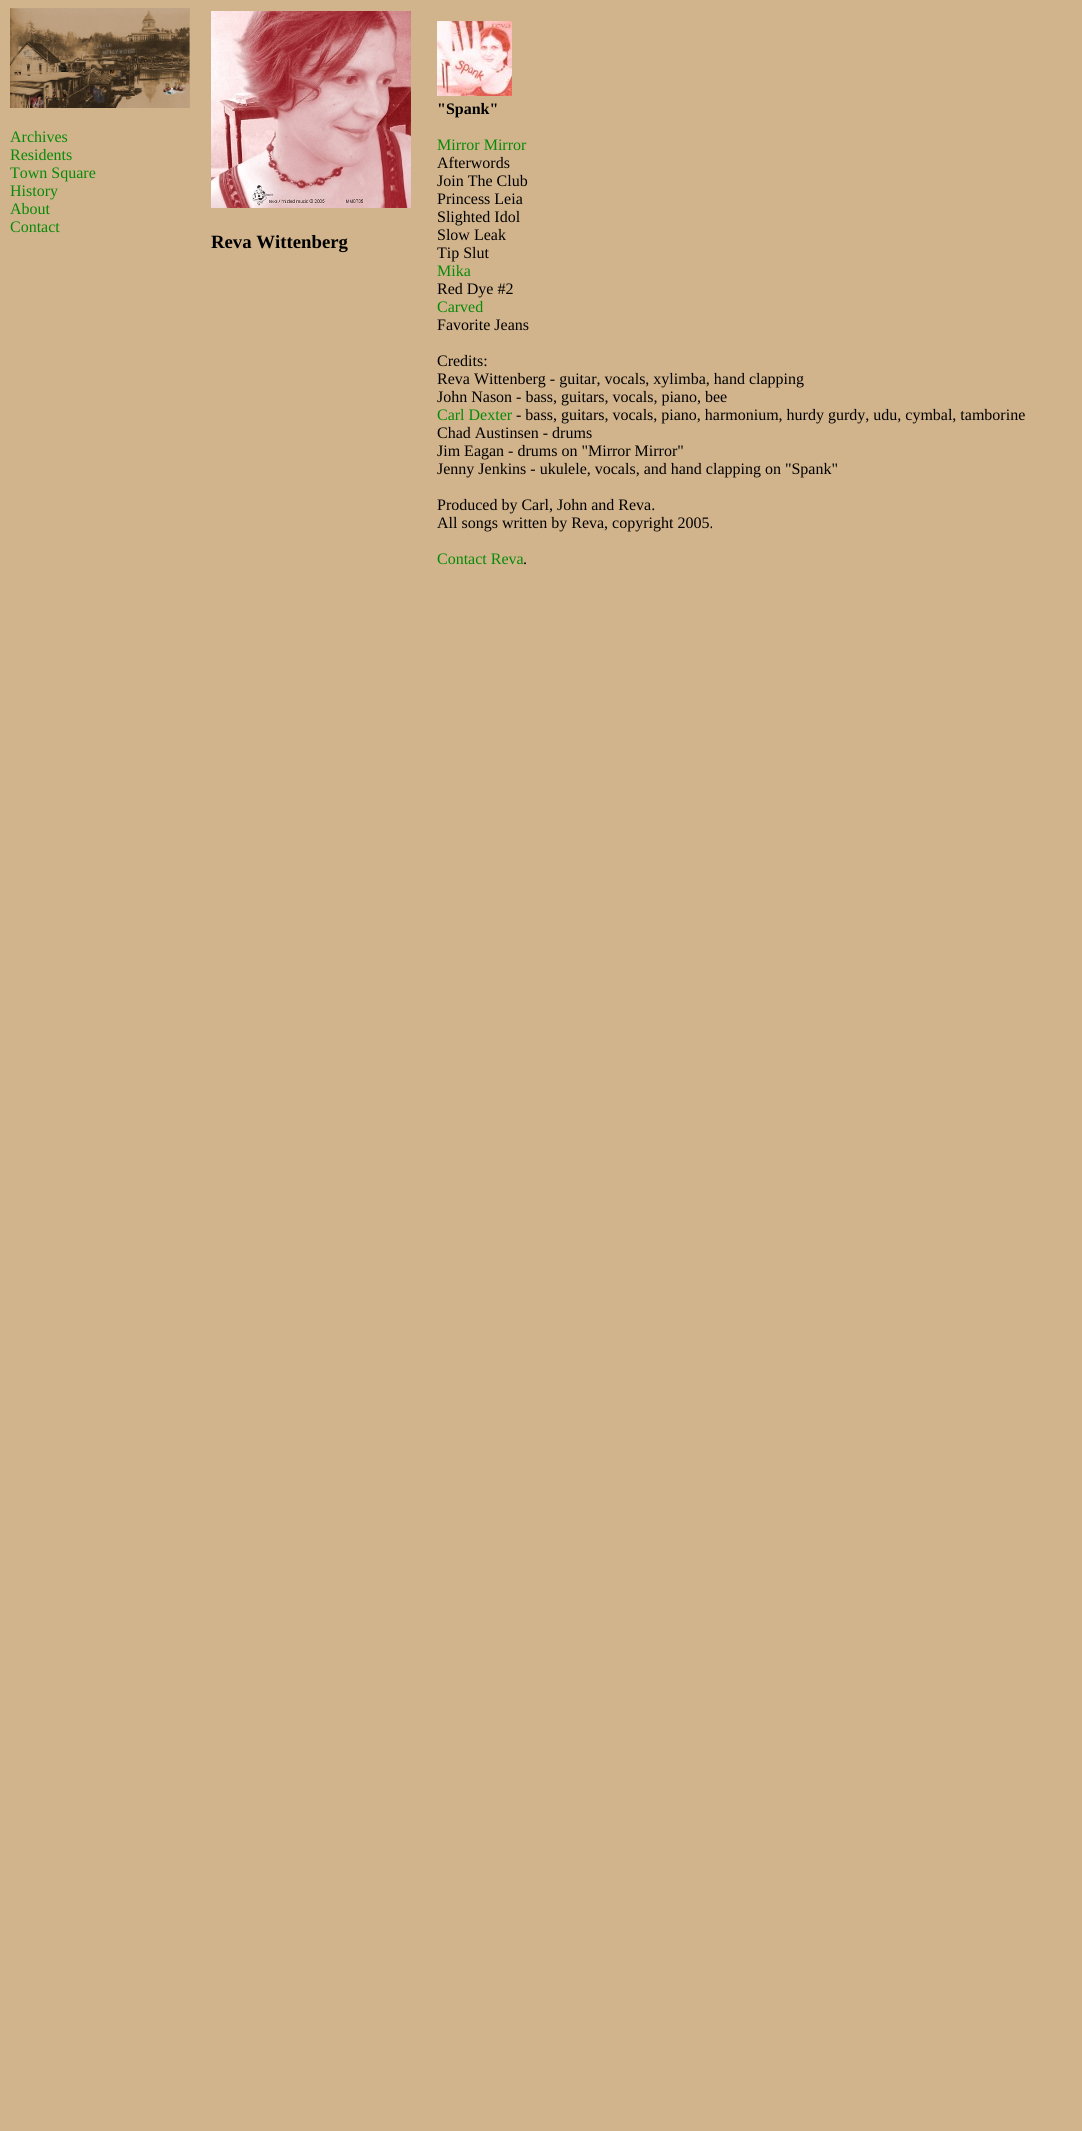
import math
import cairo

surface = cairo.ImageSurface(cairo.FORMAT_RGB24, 1082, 2131)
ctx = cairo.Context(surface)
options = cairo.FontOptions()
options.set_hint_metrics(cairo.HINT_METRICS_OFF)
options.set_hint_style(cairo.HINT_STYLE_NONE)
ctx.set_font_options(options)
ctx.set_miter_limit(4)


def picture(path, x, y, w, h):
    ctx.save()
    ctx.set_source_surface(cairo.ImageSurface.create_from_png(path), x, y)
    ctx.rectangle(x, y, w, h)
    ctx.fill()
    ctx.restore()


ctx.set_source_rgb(0.824, 0.706, 0.549)
ctx.paint()
picture("img1.png", 10, 8, 180, 100)
ctx.select_font_face("Liberation Serif")
ctx.set_font_size(16)
ctx.set_source_rgb(0.031, 0.541, 0.031)
ctx.move_to(10, 142)
ctx.show_text("Archives")
ctx.move_to(10, 160)
ctx.show_text("Residents")
ctx.move_to(10, 178)
ctx.show_text("Town Square")
ctx.move_to(10, 196)
ctx.show_text("History")
ctx.move_to(10, 214)
ctx.show_text("About")
ctx.move_to(10, 232)
ctx.show_text("Contact")
picture("img2.png", 211, 11, 200, 197)
ctx.select_font_face("Liberation Serif", cairo.FONT_SLANT_NORMAL, cairo.FONT_WEIGHT_BOLD)
ctx.set_font_size(18.75)
ctx.set_source_rgb(0, 0, 0)
ctx.move_to(211, 248)
ctx.show_text("Reva Wittenberg")
picture("img3.png", 437, 21, 75, 75)
ctx.set_font_size(16)
ctx.move_to(437, 114)
ctx.show_text("\"Spank\"")
ctx.select_font_face("Liberation Serif")
ctx.set_source_rgb(0.031, 0.541, 0.031)
ctx.move_to(437, 150)
ctx.show_text("Mirror Mirror")
ctx.set_source_rgb(0, 0, 0)
ctx.move_to(437, 168)
ctx.show_text("Afterwords")
ctx.move_to(437, 186)
ctx.show_text("Join The Club")
ctx.move_to(437, 204)
ctx.show_text("Princess Leia")
ctx.move_to(437, 222)
ctx.show_text("Slighted Idol")
ctx.move_to(437, 240)
ctx.show_text("Slow Leak")
ctx.move_to(437, 258)
ctx.show_text("Tip Slut")
ctx.set_source_rgb(0.031, 0.541, 0.031)
ctx.move_to(437, 276)
ctx.show_text("Mika")
ctx.set_source_rgb(0, 0, 0)
ctx.move_to(437, 294)
ctx.show_text("Red Dye #2")
ctx.set_source_rgb(0.031, 0.541, 0.031)
ctx.move_to(437, 312)
ctx.show_text("Carved")
ctx.set_source_rgb(0, 0, 0)
ctx.move_to(437, 330)
ctx.show_text("Favorite Jeans")
ctx.move_to(437, 366)
ctx.show_text("Credits:")
ctx.move_to(437, 384)
ctx.show_text("Reva Wittenberg - guitar, vocals, xylimba, hand clapping")
ctx.move_to(437, 402)
ctx.show_text("John Nason - bass, guitars, vocals, piano, bee")
ctx.set_source_rgb(0.031, 0.541, 0.031)
ctx.move_to(437, 420)
ctx.show_text("Carl Dexter")
ctx.set_source_rgb(0, 0, 0)
ctx.move_to(516, 420)
ctx.show_text("- bass, guitars, vocals, piano, harmonium, hurdy gurdy, udu, cymbal, tamborine")
ctx.move_to(437, 438)
ctx.show_text("Chad Austinsen - drums")
ctx.move_to(437, 456)
ctx.show_text("Jim Eagan - drums on \"Mirror Mirror\"")
ctx.move_to(437, 474)
ctx.show_text("Jenny Jenkins - ukulele, vocals, and hand clapping on \"Spank\"")
ctx.move_to(437, 510)
ctx.show_text("Produced by Carl, John and Reva.")
ctx.move_to(437, 528)
ctx.show_text("All songs written by Reva, copyright 2005.")
ctx.set_source_rgb(0.031, 0.541, 0.031)
ctx.move_to(437, 564)
ctx.show_text("Contact Reva")
ctx.set_source_rgb(0, 0, 0)
ctx.move_to(523, 564)
ctx.show_text(".")
surface.write_to_png("page.png")
